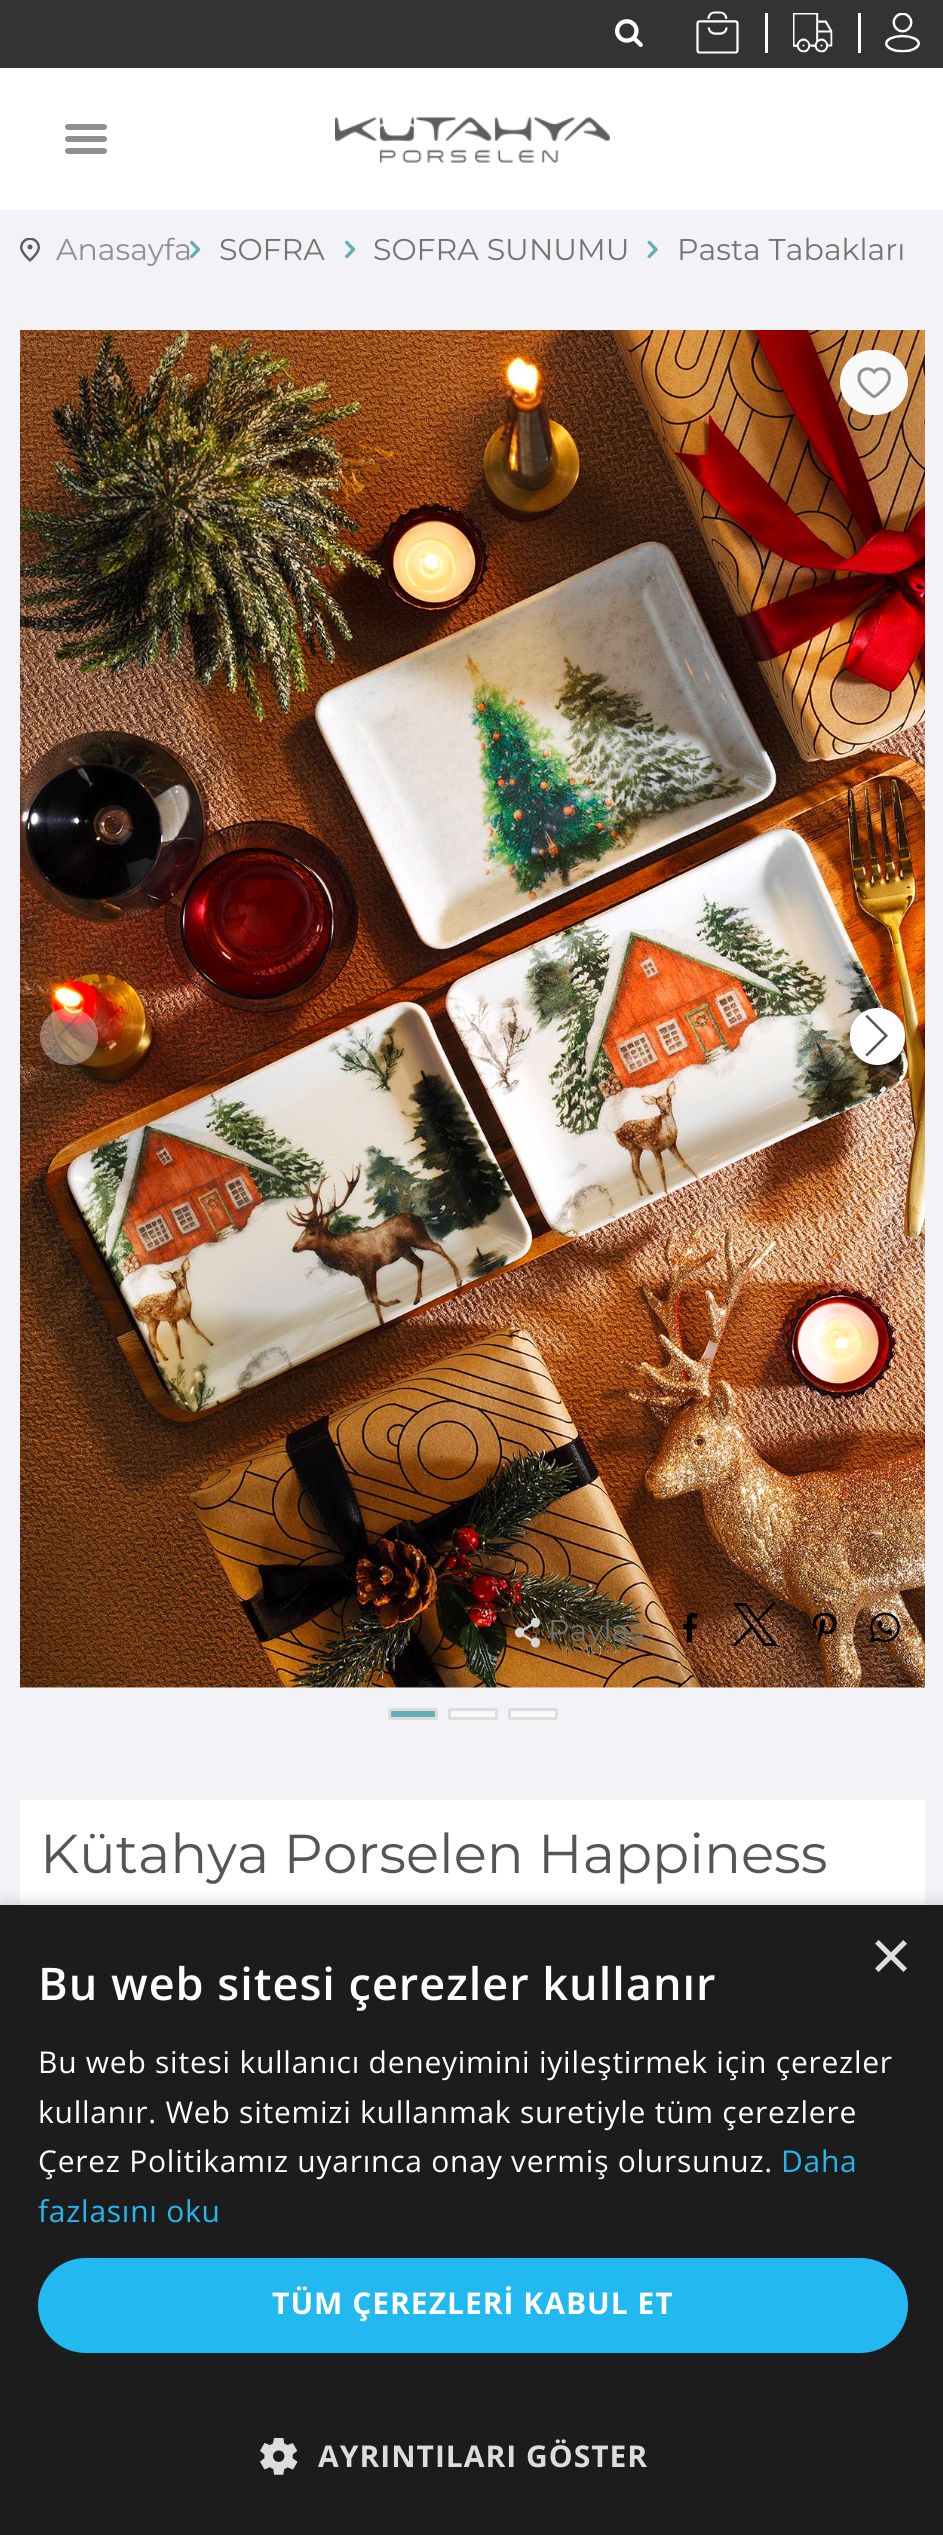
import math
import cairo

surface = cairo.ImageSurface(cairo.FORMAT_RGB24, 943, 2535)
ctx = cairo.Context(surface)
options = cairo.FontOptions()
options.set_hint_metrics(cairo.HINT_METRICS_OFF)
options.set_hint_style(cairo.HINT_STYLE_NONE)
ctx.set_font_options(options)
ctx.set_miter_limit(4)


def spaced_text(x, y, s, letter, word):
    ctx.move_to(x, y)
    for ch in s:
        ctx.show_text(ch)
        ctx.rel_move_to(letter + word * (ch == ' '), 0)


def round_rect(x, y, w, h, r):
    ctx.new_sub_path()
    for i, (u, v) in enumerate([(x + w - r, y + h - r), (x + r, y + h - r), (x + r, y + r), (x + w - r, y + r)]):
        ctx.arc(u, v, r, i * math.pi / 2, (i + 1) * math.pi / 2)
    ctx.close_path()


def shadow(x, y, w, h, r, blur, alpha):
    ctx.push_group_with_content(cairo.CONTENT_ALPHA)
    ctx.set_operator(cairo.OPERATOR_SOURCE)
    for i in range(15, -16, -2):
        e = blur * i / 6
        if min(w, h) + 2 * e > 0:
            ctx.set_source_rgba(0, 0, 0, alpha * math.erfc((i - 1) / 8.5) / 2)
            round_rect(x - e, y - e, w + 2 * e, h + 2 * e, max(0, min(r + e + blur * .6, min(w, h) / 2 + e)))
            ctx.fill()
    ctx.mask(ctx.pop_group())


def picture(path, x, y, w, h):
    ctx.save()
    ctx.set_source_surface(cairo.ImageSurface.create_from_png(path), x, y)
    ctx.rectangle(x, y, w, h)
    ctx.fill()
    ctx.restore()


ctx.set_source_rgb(0.953, 0.949, 0.961)
ctx.paint()
ctx.set_source_rgb(1, 1, 1)
ctx.rectangle(0, 68, 943, 142)
ctx.fill()
ctx.set_source_rgb(0.2, 0.2, 0.2)
ctx.rectangle(0, 0, 943, 68)
ctx.fill()
picture("img1.png", 615, 19, 28, 28)
picture("img2.png", 696, 11, 43, 43)
ctx.set_source_rgb(1, 1, 1)
ctx.rectangle(858, 13, 3, 40)
ctx.fill()
ctx.rectangle(765, 13, 3, 40)
ctx.fill()
picture("img3.png", 793, 13, 40, 40)
picture("img4.png", 885, 13, 35, 40)
picture("img5.png", 65, 124, 42, 30)
picture("img6.png", 335, 117, 275, 46)
picture("img7.png", 20, 238, 20, 24)
ctx.select_font_face("Montserrat")
ctx.set_font_size(30)
ctx.set_source_rgb(0.565, 0.565, 0.565)
ctx.move_to(56, 260)
ctx.show_text("Anasayfa")
picture("img8.png", 190, 240, 11, 19)
ctx.set_source_rgb(0.455, 0.455, 0.455)
ctx.move_to(219, 260)
ctx.show_text("SOFRA")
picture("img8.png", 345, 240, 11, 19)
ctx.move_to(373, 260)
ctx.show_text("SOFRA SUNUMU")
picture("img9.png", 647, 240, 11, 19)
ctx.move_to(677, 260)
ctx.show_text("Pasta Tabakları")
ctx.set_source_rgb(1, 1, 1)
ctx.rectangle(20, 1687, 905, 1)
ctx.fill()
picture("img13.png", 20, 330, 905, 1358)
ctx.set_source_rgb(0.976, 0.976, 0.976)
round_rect(840, 350, 68, 65, 32.5)
ctx.fill()
picture("img10.png", 857, 367, 34, 32)
ctx.set_source_rgba(1, 1, 1, 0.35)
round_rect(40, 1008, 58, 57, 28.5)
ctx.fill()
picture("img11.png", 57, 1015, 23, 42)
ctx.set_source_rgb(0, 0, 0)
shadow(850, 1010, 55, 58, 27.5, 6, 0.24)
ctx.set_source_rgb(1, 1, 1)
round_rect(850, 1008, 55, 57, 27.5)
ctx.fill()
picture("img12.png", 865, 1014, 23, 43)
picture("img14.png", 515, 1618, 25, 30)
ctx.set_source_rgb(0.455, 0.455, 0.455)
ctx.move_to(548, 1641)
ctx.show_text("Paylaş:")
picture("img15.png", 683, 1613, 15, 30)
ctx.set_source_rgb(0, 0, 0)
ctx.set_fill_rule(cairo.FILL_RULE_EVEN_ODD)
ctx.new_path()
ctx.move_to(750, 1627)
ctx.line_to(733, 1603)
ctx.line_to(746, 1603)
ctx.line_to(758, 1619)
ctx.line_to(772, 1603)
ctx.line_to(776, 1603)
ctx.line_to(759, 1621)
ctx.line_to(778, 1646)
ctx.line_to(764, 1646)
ctx.line_to(752, 1629)
ctx.line_to(736, 1646)
ctx.line_to(732, 1646)
ctx.close_path()
ctx.move_to(745, 1606)
ctx.line_to(738, 1606)
ctx.line_to(766, 1643)
ctx.line_to(772, 1643)
ctx.close_path()
ctx.fill()
picture("img16.png", 813, 1613, 24, 30)
picture("img17.png", 870, 1613, 30, 30)
ctx.set_source_rgb(0.392, 0.682, 0.718)
round_rect(389.5, 1709.5, 47, 9, 1)
ctx.fill_preserve()
ctx.set_source_rgb(0.867, 0.867, 0.867)
ctx.set_line_width(3)
ctx.stroke()
ctx.set_source_rgb(0.976, 0.976, 0.976)
round_rect(449.5, 1709.5, 47, 9, 1)
ctx.fill_preserve()
ctx.set_source_rgb(0.867, 0.867, 0.867)
ctx.stroke()
ctx.set_source_rgb(0.976, 0.976, 0.976)
round_rect(509.5, 1709.5, 47, 9, 1)
ctx.fill_preserve()
ctx.set_source_rgb(0.867, 0.867, 0.867)
ctx.stroke()
ctx.set_source_rgb(1, 1, 1)
ctx.rectangle(20, 1800, 905, 105)
ctx.fill()
ctx.set_font_size(54.75)
ctx.set_source_rgb(0.329, 0.333, 0.329)
ctx.move_to(40, 1873)
ctx.show_text("Kütahya Porselen Happiness")
ctx.set_source_rgb(0, 0, 0)
shadow(3, 1910, 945, 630, 0, 10, 0.35)
ctx.set_source_rgb(0.11, 0.11, 0.11)
ctx.rectangle(0, 1905, 943, 630)
ctx.fill()
ctx.select_font_face("Liberation Sans")
ctx.set_font_size(72)
ctx.set_source_rgb(0.867, 0.867, 0.867)
ctx.move_to(870, 1980)
ctx.show_text("×")
ctx.select_font_face("Open Sans SemiBold")
ctx.set_font_size(45)
ctx.set_source_rgb(1, 1, 1)
spaced_text(38, 2000, "Bu web sitesi çerezler kullanır", 1, 0)
ctx.select_font_face("Open Sans")
ctx.set_font_size(30)
spaced_text(38, 2073, "Bu web sitesi kullanıcı deneyimini iyileştirmek için çerezler", 0.75, 0)
spaced_text(38, 2123, "kullanır. Web sitemizi kullanmak suretiyle tüm çerezlere", 0.75, 0)
spaced_text(38, 2172, "Çerez Politikamız uyarınca onay vermiş olursunuz.", 0.75, 0)
ctx.set_source_rgb(0.133, 0.722, 0.941)
spaced_text(781, 2172, "Daha", 0.75, 0)
spaced_text(38, 2222, "fazlasını oku", 0.75, 0)
round_rect(38, 2258, 870, 95, 47.5)
ctx.fill()
ctx.select_font_face("Open Sans", cairo.FONT_SLANT_NORMAL, cairo.FONT_WEIGHT_BOLD)
ctx.set_source_rgb(1, 1, 1)
spaced_text(272, 2314, "TÜM ÇEREZLERİ KABUL ET", 1, 0)
picture("img18.png", 260, 2438, 38, 37)
ctx.set_source_rgb(0.867, 0.867, 0.867)
spaced_text(318, 2467, "AYRINTILARI GÖSTER", 1, 0)
surface.write_to_png("page.png")
